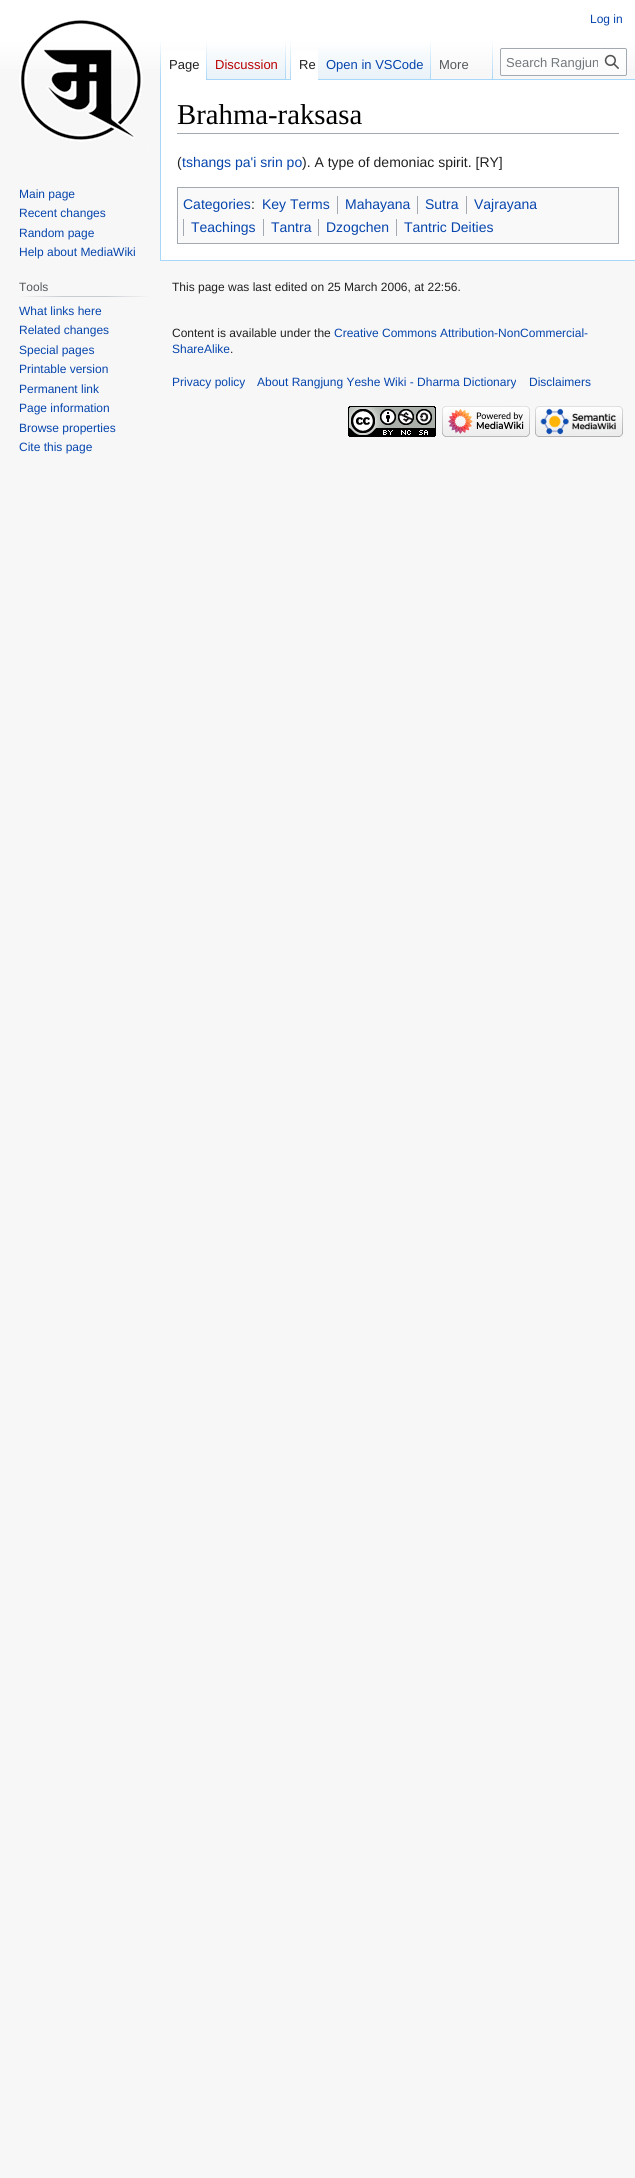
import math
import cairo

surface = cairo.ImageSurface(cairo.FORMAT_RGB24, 635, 2178)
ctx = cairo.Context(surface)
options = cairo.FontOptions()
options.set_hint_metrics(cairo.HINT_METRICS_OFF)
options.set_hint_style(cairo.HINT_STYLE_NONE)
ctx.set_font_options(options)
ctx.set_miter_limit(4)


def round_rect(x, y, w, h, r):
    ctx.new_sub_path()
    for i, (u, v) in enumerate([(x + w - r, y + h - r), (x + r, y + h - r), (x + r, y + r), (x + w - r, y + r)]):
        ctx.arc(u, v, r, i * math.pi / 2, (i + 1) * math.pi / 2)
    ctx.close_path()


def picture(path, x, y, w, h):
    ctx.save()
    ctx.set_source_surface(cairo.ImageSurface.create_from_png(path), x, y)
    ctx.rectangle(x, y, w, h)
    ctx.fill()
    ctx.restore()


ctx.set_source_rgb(0.965, 0.965, 0.965)
ctx.paint()
gradient = cairo.LinearGradient(318, 0, 318, 80)
gradient.add_color_stop_rgba(0.5, 1, 1, 1, 1)
gradient.add_color_stop_rgba(1, 0.965, 0.965, 0.965, 1)
ctx.set_source(gradient)
ctx.rectangle(0, 0, 635, 69)
ctx.fill()
ctx.select_font_face("Liberation Sans")
ctx.set_font_size(12)
ctx.set_source_rgb(0.024, 0.271, 0.678)
ctx.move_to(590, 23)
ctx.show_text("Log in")
ctx.set_source_rgb(0.655, 0.843, 0.976)
ctx.rectangle(160, 260, 475, 1)
ctx.fill()
ctx.rectangle(160, 79, 1, 182)
ctx.fill()
gradient = cairo.LinearGradient(161, 40, 161, 80)
gradient.add_color_stop_rgba(0, 0.655, 0.843, 0.976, 0)
gradient.add_color_stop_rgba(1, 0.655, 0.843, 0.976, 1)
ctx.set_source(gradient)
ctx.rectangle(160, 40, 1, 40)
ctx.fill()
ctx.set_source_rgb(1, 1, 1)
ctx.rectangle(161, 51, 45, 29)
ctx.fill()
gradient = cairo.LinearGradient(207, 40, 207, 80)
gradient.add_color_stop_rgba(0, 1, 1, 1, 1)
gradient.add_color_stop_rgba(1, 0.655, 0.843, 0.976, 1)
ctx.set_source(gradient)
ctx.rectangle(206, 40, 1, 40)
ctx.fill()
ctx.set_font_size(13)
ctx.set_source_rgb(0.125, 0.129, 0.133)
ctx.move_to(169, 69)
ctx.show_text("Page")
gradient = cairo.LinearGradient(247, 80, 247, 40)
gradient.add_color_stop_rgba(0, 0.467, 0.757, 0.965, 1)
gradient.add_color_stop_rgba(0.03, 0.91, 0.949, 0.973, 1)
gradient.add_color_stop_rgba(1, 1, 1, 1, 1)
ctx.set_source(gradient)
ctx.rectangle(207, 46, 79, 34)
ctx.fill()
gradient = cairo.LinearGradient(286, 40, 286, 80)
gradient.add_color_stop_rgba(0, 0.655, 0.843, 0.976, 0)
gradient.add_color_stop_rgba(1, 0.655, 0.843, 0.976, 1)
ctx.set_source(gradient)
ctx.rectangle(285, 40, 1, 40)
ctx.fill()
ctx.set_source_rgb(0.729, 0, 0)
ctx.move_to(215, 69)
ctx.show_text("Discussion")
ctx.set_source_rgb(0.655, 0.843, 0.976)
ctx.rectangle(286, 79, 349, 1)
ctx.fill()
gradient = cairo.LinearGradient(291, 40, 291, 80)
gradient.add_color_stop_rgba(0, 0.655, 0.843, 0.976, 0)
gradient.add_color_stop_rgba(1, 0.655, 0.843, 0.976, 1)
ctx.set_source(gradient)
ctx.rectangle(290, 40, 1, 40)
ctx.fill()
ctx.set_source_rgb(1, 1, 1)
ctx.rectangle(291, 51, 27, 29)
ctx.fill()
ctx.set_source_rgb(0.125, 0.129, 0.133)
ctx.move_to(299, 69)
ctx.show_text("Re")
gradient = cairo.LinearGradient(375, 80, 375, 40)
gradient.add_color_stop_rgba(0, 0.467, 0.757, 0.965, 1)
gradient.add_color_stop_rgba(0.03, 0.91, 0.949, 0.973, 1)
gradient.add_color_stop_rgba(1, 1, 1, 1, 1)
ctx.set_source(gradient)
ctx.rectangle(318, 46, 113, 33)
ctx.fill()
gradient = cairo.LinearGradient(431, 40, 431, 80)
gradient.add_color_stop_rgba(0, 0.655, 0.843, 0.976, 0)
gradient.add_color_stop_rgba(1, 0.655, 0.843, 0.976, 1)
ctx.set_source(gradient)
ctx.rectangle(430, 40, 1, 40)
ctx.fill()
ctx.set_source_rgb(0.024, 0.271, 0.678)
ctx.move_to(326, 69)
ctx.show_text("Open in VSCode")
gradient = cairo.LinearGradient(493, 40, 493, 80)
gradient.add_color_stop_rgba(0, 0.655, 0.843, 0.976, 0)
gradient.add_color_stop_rgba(1, 0.655, 0.843, 0.976, 1)
ctx.set_source(gradient)
ctx.rectangle(492, 40, 1, 40)
ctx.fill()
ctx.set_source_rgb(0.329, 0.349, 0.365)
ctx.move_to(439, 69)
ctx.show_text("More")
ctx.set_source_rgba(1, 1, 1, 0.5)
round_rect(500.5, 48.5, 126, 27, 1.5)
ctx.fill_preserve()
ctx.set_source_rgb(0.635, 0.663, 0.694)
ctx.set_line_width(1)
ctx.stroke()
ctx.save()
ctx.rectangle(506, 55, 92, 15)
ctx.clip()
ctx.set_source_rgb(0.447, 0.467, 0.49)
ctx.move_to(506, 67)
ctx.show_text("Search Rangjun")
ctx.restore()
picture("img1.png", 604, 54, 15, 15)
picture("img2.png", 13, 20, 135, 127)
ctx.set_font_size(12)
ctx.set_source_rgb(0.024, 0.271, 0.678)
ctx.move_to(19, 198)
ctx.show_text("Main page")
ctx.move_to(19, 217)
ctx.show_text("Recent changes")
ctx.move_to(19, 237)
ctx.show_text("Random page")
ctx.move_to(19, 256)
ctx.show_text("Help about MediaWiki")
gradient = cairo.LinearGradient(19, 297, 150, 297)
gradient.add_color_stop_rgba(0, 0.965, 0.965, 0.965, 1)
gradient.add_color_stop_rgba(0.33, 0.784, 0.8, 0.82, 1)
gradient.add_color_stop_rgba(0.66, 0.784, 0.8, 0.82, 1)
gradient.add_color_stop_rgba(1, 0.965, 0.965, 0.965, 1)
ctx.set_source(gradient)
ctx.rectangle(19, 296, 131, 1)
ctx.fill()
ctx.set_source_rgb(0.329, 0.349, 0.365)
ctx.move_to(19, 291)
ctx.show_text("Tools")
ctx.set_source_rgb(0.024, 0.271, 0.678)
ctx.move_to(19, 315)
ctx.show_text("What links here")
ctx.move_to(19, 334)
ctx.show_text("Related changes")
ctx.move_to(19, 354)
ctx.show_text("Special pages")
ctx.move_to(19, 373)
ctx.show_text("Printable version")
ctx.move_to(19, 393)
ctx.show_text("Permanent link")
ctx.move_to(19, 412)
ctx.show_text("Page information")
ctx.move_to(19, 432)
ctx.show_text("Browse properties")
ctx.move_to(19, 451)
ctx.show_text("Cite this page")
ctx.set_source_rgb(1, 1, 1)
ctx.rectangle(161, 80, 474, 180)
ctx.fill()
ctx.set_source_rgb(0.635, 0.663, 0.694)
ctx.rectangle(177, 133, 442, 1)
ctx.fill()
ctx.select_font_face("Liberation Serif")
ctx.set_font_size(28.75)
ctx.set_source_rgb(0, 0, 0)
ctx.move_to(177, 124)
ctx.show_text("Brahma-raksasa")
ctx.select_font_face("Liberation Sans")
ctx.set_font_size(14)
ctx.set_source_rgb(0.125, 0.129, 0.133)
ctx.move_to(177, 167)
ctx.show_text("(")
ctx.set_source_rgb(0.024, 0.271, 0.678)
ctx.move_to(182, 167)
ctx.show_text("tshangs pa'i srin po")
ctx.set_source_rgb(0.125, 0.129, 0.133)
ctx.move_to(302, 167)
ctx.show_text("). A type of demoniac spirit. [RY]")
ctx.set_source_rgb(0.973, 0.976, 0.98)
ctx.rectangle(177.5, 187.5, 441, 56)
ctx.fill_preserve()
ctx.set_source_rgb(0.635, 0.663, 0.694)
ctx.stroke()
ctx.set_source_rgb(0.024, 0.271, 0.678)
ctx.move_to(183, 209)
ctx.show_text("Categories")
ctx.move_to(262, 209)
ctx.show_text("Key Terms")
ctx.set_source_rgb(0.635, 0.663, 0.694)
ctx.rectangle(337, 196, 1, 18)
ctx.fill()
ctx.set_source_rgb(0.024, 0.271, 0.678)
ctx.move_to(345, 209)
ctx.show_text("Mahayana")
ctx.set_source_rgb(0.635, 0.663, 0.694)
ctx.rectangle(417, 196, 1, 18)
ctx.fill()
ctx.set_source_rgb(0.024, 0.271, 0.678)
ctx.move_to(425, 209)
ctx.show_text("Sutra")
ctx.set_source_rgb(0.635, 0.663, 0.694)
ctx.rectangle(466, 196, 1, 18)
ctx.fill()
ctx.set_source_rgb(0.024, 0.271, 0.678)
ctx.move_to(474, 209)
ctx.show_text("Vajrayana")
ctx.set_source_rgb(0.635, 0.663, 0.694)
ctx.rectangle(183, 219, 1, 17)
ctx.fill()
ctx.set_source_rgb(0.024, 0.271, 0.678)
ctx.move_to(191, 232)
ctx.show_text("Teachings")
ctx.set_source_rgb(0.635, 0.663, 0.694)
ctx.rectangle(263, 219, 1, 17)
ctx.fill()
ctx.set_source_rgb(0.024, 0.271, 0.678)
ctx.move_to(271, 232)
ctx.show_text("Tantra")
ctx.set_source_rgb(0.635, 0.663, 0.694)
ctx.rectangle(318, 219, 1, 17)
ctx.fill()
ctx.set_source_rgb(0.024, 0.271, 0.678)
ctx.move_to(326, 232)
ctx.show_text("Dzogchen")
ctx.set_source_rgb(0.635, 0.663, 0.694)
ctx.rectangle(396, 219, 1, 17)
ctx.fill()
ctx.set_source_rgb(0.024, 0.271, 0.678)
ctx.move_to(404, 232)
ctx.show_text("Tantric Deities")
ctx.set_source_rgb(0.125, 0.129, 0.133)
ctx.move_to(251, 209)
ctx.show_text(":")
ctx.set_font_size(12)
ctx.move_to(172, 291)
ctx.show_text("This page was last edited on 25 March 2006, at 22:56.")
ctx.move_to(172, 337)
ctx.show_text("Content is available under the")
ctx.set_source_rgb(0.024, 0.271, 0.678)
ctx.move_to(334, 337)
ctx.show_text("Creative Commons Attribution-NonCommercial-")
ctx.move_to(172, 353)
ctx.show_text("ShareAlike")
ctx.set_source_rgb(0.125, 0.129, 0.133)
ctx.move_to(230, 353)
ctx.show_text(".")
ctx.set_source_rgb(0.024, 0.271, 0.678)
ctx.move_to(172, 386)
ctx.show_text("Privacy policy")
ctx.move_to(257, 386)
ctx.show_text("About Rangjung Yeshe Wiki - Dharma Dictionary")
ctx.move_to(529, 386)
ctx.show_text("Disclaimers")
picture("img3.png", 348, 406, 88, 31)
picture("img4.png", 442, 406, 88, 31)
picture("img5.png", 535, 406, 88, 31)
surface.write_to_png("page.png")
